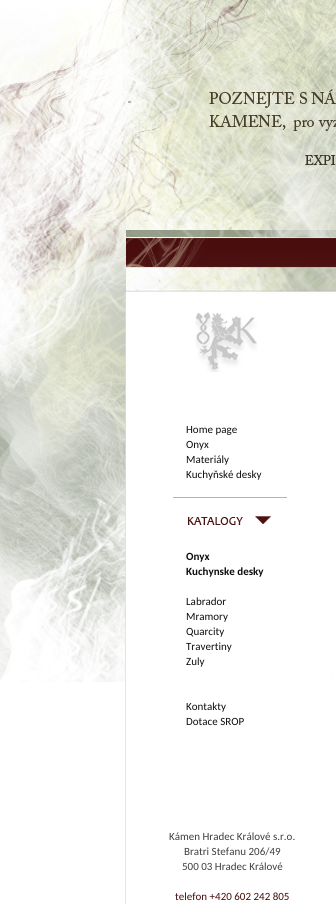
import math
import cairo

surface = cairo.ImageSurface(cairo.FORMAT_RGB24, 336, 904)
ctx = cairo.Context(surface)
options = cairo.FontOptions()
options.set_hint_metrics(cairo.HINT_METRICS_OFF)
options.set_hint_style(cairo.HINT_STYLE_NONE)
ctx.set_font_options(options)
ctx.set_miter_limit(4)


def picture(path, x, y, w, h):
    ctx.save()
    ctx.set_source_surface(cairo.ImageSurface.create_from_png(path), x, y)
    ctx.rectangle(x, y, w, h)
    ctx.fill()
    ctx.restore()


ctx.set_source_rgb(1, 1, 1)
ctx.paint()
picture("img1.png", 0, 0, 336, 682)
picture("img2.png", 125, 230, 211, 62)
ctx.set_source_rgb(0.898, 0.898, 0.898)
ctx.rectangle(125, 618, 1, 286)
ctx.fill()
picture("img3.png", 125, 292, 1, 326)
ctx.set_source_rgb(1, 1, 1)
ctx.rectangle(126, 292, 210, 380)
ctx.fill()
picture("img4.png", 195, 312, 63, 60)
ctx.select_font_face("Carlito")
ctx.set_font_size(11)
ctx.set_source_rgb(0.051, 0.051, 0.051)
ctx.move_to(186, 433)
ctx.show_text("Home page")
ctx.move_to(186, 448)
ctx.show_text("Onyx")
ctx.move_to(186, 463)
ctx.show_text("Materiály")
ctx.move_to(186, 478)
ctx.show_text("Kuchyňské desky")
picture("img5.png", 172, 497, 115, 28)
ctx.select_font_face("Carlito", cairo.FONT_SLANT_NORMAL, cairo.FONT_WEIGHT_BOLD)
ctx.move_to(186, 560)
ctx.show_text("Onyx")
ctx.move_to(186, 575)
ctx.show_text("Kuchynske desky")
ctx.select_font_face("Carlito")
ctx.move_to(186, 605)
ctx.show_text("Labrador")
ctx.move_to(186, 620)
ctx.show_text("Mramory")
ctx.move_to(186, 635)
ctx.show_text("Quarcity")
ctx.move_to(186, 650)
ctx.show_text("Travertiny")
ctx.move_to(186, 665)
ctx.show_text("Zuly")
ctx.move_to(186, 710)
ctx.show_text("Kontakty")
ctx.move_to(186, 725)
ctx.show_text("Dotace SROP")
ctx.set_source_rgb(0.243, 0.243, 0.243)
ctx.move_to(169, 840)
ctx.show_text("Kámen Hradec Králové s.r.o.")
ctx.move_to(184, 855)
ctx.show_text("Bratri Stefanu 206/49")
ctx.move_to(182, 870)
ctx.show_text("500 03 Hradec Králové")
ctx.set_source_rgb(0.278, 0.047, 0.047)
ctx.move_to(175, 900)
ctx.show_text("telefon +420 602 242 805")
surface.write_to_png("page.png")
